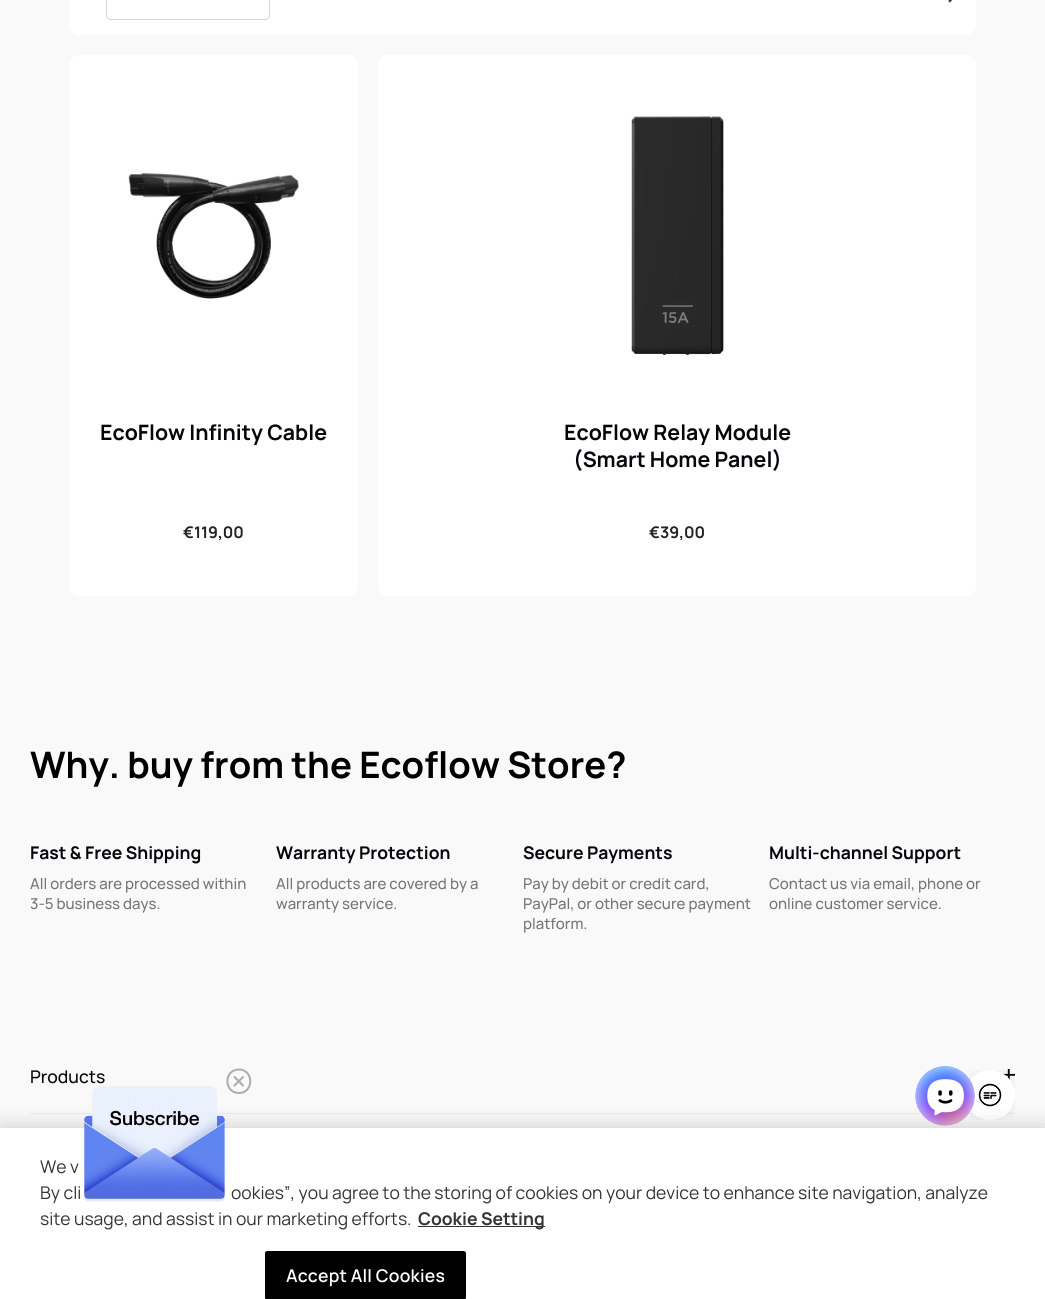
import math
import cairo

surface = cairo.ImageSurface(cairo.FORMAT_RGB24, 1045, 1299)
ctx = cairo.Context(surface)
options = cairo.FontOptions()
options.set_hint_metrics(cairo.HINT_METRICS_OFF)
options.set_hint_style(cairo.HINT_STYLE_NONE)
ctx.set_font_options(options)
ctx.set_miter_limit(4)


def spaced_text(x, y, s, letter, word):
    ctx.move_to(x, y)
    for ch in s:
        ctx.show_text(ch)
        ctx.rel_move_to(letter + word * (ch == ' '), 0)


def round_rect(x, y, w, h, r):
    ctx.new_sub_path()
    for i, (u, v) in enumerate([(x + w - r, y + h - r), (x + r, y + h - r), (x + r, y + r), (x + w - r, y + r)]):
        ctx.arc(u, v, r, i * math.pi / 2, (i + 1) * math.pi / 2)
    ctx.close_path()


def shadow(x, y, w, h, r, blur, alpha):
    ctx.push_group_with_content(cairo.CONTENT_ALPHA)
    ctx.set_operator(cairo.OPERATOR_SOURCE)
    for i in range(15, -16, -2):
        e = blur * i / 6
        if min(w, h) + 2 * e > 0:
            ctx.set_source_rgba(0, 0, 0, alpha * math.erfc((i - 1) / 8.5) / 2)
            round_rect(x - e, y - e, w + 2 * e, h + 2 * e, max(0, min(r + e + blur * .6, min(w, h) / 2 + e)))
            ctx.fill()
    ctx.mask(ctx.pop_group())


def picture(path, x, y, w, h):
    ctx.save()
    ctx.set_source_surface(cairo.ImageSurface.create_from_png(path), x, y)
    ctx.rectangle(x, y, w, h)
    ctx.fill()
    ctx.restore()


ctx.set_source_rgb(0.973, 0.973, 0.973)
ctx.paint()
ctx.set_source_rgb(1, 1, 1)
round_rect(69, -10, 907, 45, 10)
ctx.fill()
round_rect(106.5, -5.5, 163, 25, 4.5)
ctx.set_source_rgb(0.839, 0.839, 0.839)
ctx.set_line_width(1)
ctx.stroke()
picture("img1.png", 948, 0, 5, 3)
ctx.set_source_rgb(1, 1, 1)
round_rect(69, 55, 289, 541, 10)
ctx.fill()
picture("img2.png", 128, 173, 171, 126)
ctx.select_font_face("Manrope", cairo.FONT_SLANT_NORMAL, cairo.FONT_WEIGHT_BOLD)
ctx.set_font_size(21.25)
ctx.set_source_rgb(0.012, 0.024, 0.043)
ctx.move_to(100, 440)
ctx.show_text("EcoFlow Infinity Cable")
ctx.set_font_size(16)
ctx.set_source_rgb(0.137, 0.137, 0.137)
ctx.move_to(183, 538)
ctx.show_text("€119,00")
ctx.set_source_rgb(1, 1, 1)
round_rect(378, 55, 598, 541, 10)
ctx.fill()
picture("img3.png", 631, 116, 93, 239)
ctx.set_font_size(21.25)
ctx.set_source_rgb(0.012, 0.024, 0.043)
ctx.move_to(564, 440)
ctx.show_text("EcoFlow Relay Module")
ctx.move_to(573, 467)
ctx.show_text("(Smart Home Panel)")
ctx.set_font_size(16)
ctx.set_source_rgb(0.137, 0.137, 0.137)
ctx.move_to(649, 538)
ctx.show_text("€39,00")
ctx.set_font_size(36.5)
ctx.set_source_rgb(0, 0, 0)
ctx.move_to(30, 778)
ctx.show_text("Why. buy from the Ecoflow Store?")
ctx.set_font_size(17.5)
ctx.set_source_rgb(0.012, 0.024, 0.043)
ctx.move_to(30, 859)
ctx.show_text("Fast & Free Shipping")
ctx.select_font_face("Manrope Medium")
ctx.set_font_size(15)
ctx.set_source_rgb(0.459, 0.459, 0.459)
ctx.move_to(30, 889)
ctx.show_text("All orders are processed within")
ctx.move_to(30, 909)
ctx.show_text("3-5 business days.")
ctx.select_font_face("Manrope", cairo.FONT_SLANT_NORMAL, cairo.FONT_WEIGHT_BOLD)
ctx.set_font_size(17.5)
ctx.set_source_rgb(0.012, 0.024, 0.043)
ctx.move_to(276, 859)
ctx.show_text("Warranty Protection")
ctx.select_font_face("Manrope Medium")
ctx.set_font_size(15)
ctx.set_source_rgb(0.459, 0.459, 0.459)
ctx.move_to(276, 889)
ctx.show_text("All products are covered by a")
ctx.move_to(276, 909)
ctx.show_text("warranty service.")
ctx.select_font_face("Manrope", cairo.FONT_SLANT_NORMAL, cairo.FONT_WEIGHT_BOLD)
ctx.set_font_size(17.5)
ctx.set_source_rgb(0.012, 0.024, 0.043)
ctx.move_to(523, 859)
ctx.show_text("Secure Payments")
ctx.select_font_face("Manrope Medium")
ctx.set_font_size(15)
ctx.set_source_rgb(0.459, 0.459, 0.459)
ctx.move_to(523, 889)
ctx.show_text("Pay by debit or credit card,")
ctx.move_to(523, 909)
ctx.show_text("PayPal, or other secure payment")
ctx.move_to(523, 929)
ctx.show_text("platform.")
ctx.select_font_face("Manrope", cairo.FONT_SLANT_NORMAL, cairo.FONT_WEIGHT_BOLD)
ctx.set_font_size(17.5)
ctx.set_source_rgb(0.012, 0.024, 0.043)
ctx.move_to(769, 859)
ctx.show_text("Multi-channel Support")
ctx.select_font_face("Manrope Medium")
ctx.set_font_size(15)
ctx.set_source_rgb(0.459, 0.459, 0.459)
ctx.move_to(769, 889)
ctx.show_text("Contact us via email, phone or")
ctx.move_to(769, 909)
ctx.show_text("online customer service.")
ctx.set_source_rgb(0.922, 0.914, 0.914)
ctx.rectangle(30, 1113, 985, 1)
ctx.fill()
ctx.set_font_size(17.5)
ctx.set_source_rgb(0.012, 0.024, 0.043)
ctx.move_to(30, 1083)
ctx.show_text("Products")
picture("img4.png", 1003, 1069, 12, 11)
ctx.new_path()
ctx.move_to(239, 1069.5)
ctx.curve_to(254, 1069.5, 254, 1093, 239, 1093)
ctx.curve_to(223.5, 1093, 223.5, 1069.5, 239, 1069.5)
ctx.close_path()
ctx.set_source_rgb(0.675, 0.675, 0.675)
ctx.set_line_width(2)
ctx.stroke()
ctx.new_path()
ctx.move_to(234.5, 1077)
ctx.line_to(243, 1085.5)
ctx.move_to(243, 1077)
ctx.line_to(234.5, 1085.5)
ctx.set_line_cap(cairo.LINE_CAP_ROUND)
ctx.set_line_join(cairo.LINE_JOIN_ROUND)
ctx.stroke()
picture("img8.png", 965, 1070, 50, 50)
ctx.set_source_rgba(1, 1, 1, 0.98)
ctx.arc(945, 1095, 30, 0, 2 * math.pi)
ctx.fill()
picture("img6.png", 915, 1066, 60, 60)
picture("img7.png", 927, 1079, 37, 37)
ctx.set_source_rgb(0, 0, 0)
shadow(0, 1128, 1045, 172, 0, 11, 0.2)
ctx.set_source_rgb(1, 1, 1)
ctx.rectangle(0, 1128, 1045, 171)
ctx.fill()
picture("img5.png", 83, 1086, 143, 116)
ctx.select_font_face("Manrope")
ctx.set_source_rgb(0.204, 0.204, 0.204)
ctx.move_to(40, 1173)
ctx.show_text("We v")
ctx.move_to(40, 1199)
ctx.show_text("By cli")
ctx.move_to(231, 1199)
ctx.show_text("ookies”, you agree to the storing of cookies on your device to enhance site navigation, analyze")
ctx.move_to(40, 1225)
ctx.show_text("site usage, and assist in our marketing efforts.")
ctx.rectangle(418, 1226, 127, 1)
ctx.fill()
ctx.select_font_face("Manrope", cairo.FONT_SLANT_NORMAL, cairo.FONT_WEIGHT_BOLD)
ctx.move_to(418, 1225)
ctx.show_text("Cookie Setting")
ctx.set_source_rgb(0, 0, 0)
round_rect(265.5, 1251.5, 200, 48, 2)
ctx.fill_preserve()
ctx.set_line_width(1)
ctx.set_line_cap(cairo.LINE_CAP_BUTT)
ctx.set_line_join(cairo.LINE_JOIN_MITER)
ctx.stroke()
ctx.select_font_face("Manrope SemiBold")
ctx.set_source_rgb(1, 1, 1)
spaced_text(286, 1282, "Accept All Cookies", 0.2, 0)
surface.write_to_png("page.png")
